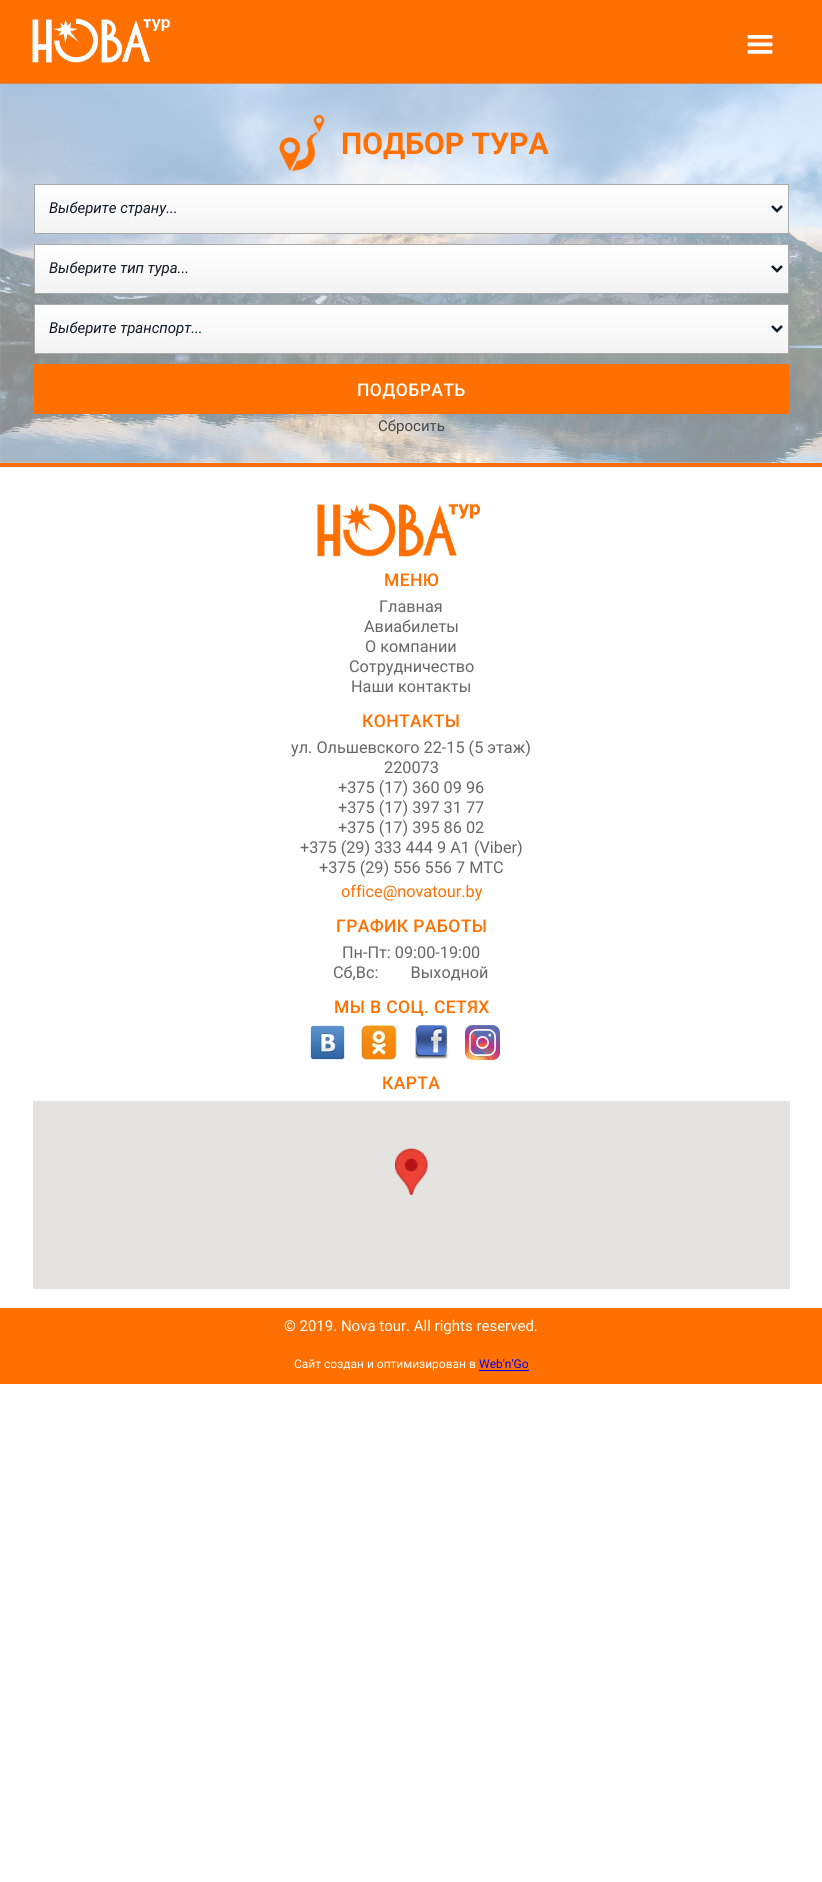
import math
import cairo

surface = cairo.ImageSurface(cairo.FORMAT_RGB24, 822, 1882)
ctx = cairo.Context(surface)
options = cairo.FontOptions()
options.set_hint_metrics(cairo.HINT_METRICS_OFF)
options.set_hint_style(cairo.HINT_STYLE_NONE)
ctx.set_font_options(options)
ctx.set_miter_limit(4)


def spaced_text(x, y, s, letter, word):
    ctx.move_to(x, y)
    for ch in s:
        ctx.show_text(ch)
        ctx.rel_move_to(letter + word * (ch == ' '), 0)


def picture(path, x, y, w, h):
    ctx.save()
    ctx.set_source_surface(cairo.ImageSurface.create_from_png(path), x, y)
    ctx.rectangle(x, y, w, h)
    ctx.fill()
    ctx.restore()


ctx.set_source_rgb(1, 1, 1)
ctx.paint()
ctx.set_source_rgb(1, 0.439, 0)
ctx.rectangle(0, 0, 822, 84)
ctx.fill()
picture("img1.png", 32, 18, 138, 45)
picture("img2.png", 747, 35, 26, 19)
picture("img3.png", 0, 83, 822, 380)
picture("img4.png", 279, 115, 46, 57)
ctx.select_font_face("Roboto", cairo.FONT_SLANT_NORMAL, cairo.FONT_WEIGHT_BOLD)
ctx.set_font_size(30)
ctx.move_to(341, 154)
ctx.show_text("ПОДБОР ТУРА")
gradient = cairo.LinearGradient(411, 185, 411, 233)
gradient.add_color_stop_rgba(0, 1, 1, 1, 1)
gradient.add_color_stop_rgba(1, 0.953, 0.953, 0.953, 1)
ctx.set_source(gradient)
ctx.rectangle(35, 185, 753, 48)
ctx.fill()
ctx.rectangle(34.5, 184.5, 754, 49)
ctx.set_source_rgb(0.667, 0.667, 0.667)
ctx.set_line_width(1)
ctx.stroke()
ctx.new_path()
ctx.move_to(772, 206)
ctx.line_to(777, 211)
ctx.line_to(782, 206)
ctx.set_source_rgb(0.063, 0.102, 0.141)
ctx.set_line_width(2.5)
ctx.stroke()
ctx.select_font_face("Roboto", cairo.FONT_SLANT_ITALIC)
ctx.set_font_size(15)
ctx.move_to(49, 213)
ctx.show_text("Выберите страну...")
gradient = cairo.LinearGradient(411, 245, 411, 293)
gradient.add_color_stop_rgba(0, 1, 1, 1, 1)
gradient.add_color_stop_rgba(1, 0.953, 0.953, 0.953, 1)
ctx.set_source(gradient)
ctx.rectangle(35, 245, 753, 48)
ctx.fill()
ctx.rectangle(34.5, 244.5, 754, 49)
ctx.set_source_rgb(0.667, 0.667, 0.667)
ctx.set_line_width(1)
ctx.stroke()
ctx.new_path()
ctx.move_to(772, 266)
ctx.line_to(777, 271)
ctx.line_to(782, 266)
ctx.set_source_rgb(0.063, 0.102, 0.141)
ctx.set_line_width(2.5)
ctx.stroke()
ctx.move_to(49, 273)
ctx.show_text("Выберите тип тура...")
gradient = cairo.LinearGradient(411, 305, 411, 353)
gradient.add_color_stop_rgba(0, 1, 1, 1, 1)
gradient.add_color_stop_rgba(1, 0.953, 0.953, 0.953, 1)
ctx.set_source(gradient)
ctx.rectangle(35, 305, 753, 48)
ctx.fill()
ctx.rectangle(34.5, 304.5, 754, 49)
ctx.set_source_rgb(0.667, 0.667, 0.667)
ctx.set_line_width(1)
ctx.stroke()
ctx.new_path()
ctx.move_to(772, 326)
ctx.line_to(777, 331)
ctx.line_to(782, 326)
ctx.set_source_rgb(0.063, 0.102, 0.141)
ctx.set_line_width(2.5)
ctx.stroke()
ctx.move_to(49, 333)
ctx.show_text("Выберите транспорт...")
ctx.set_source_rgb(1, 0.439, 0)
ctx.rectangle(34, 364, 755, 50)
ctx.fill()
ctx.select_font_face("Roboto Medium")
ctx.set_font_size(17.5)
ctx.set_source_rgb(1, 1, 1)
spaced_text(357, 396, "ПОДОБРАТЬ", 0.4, 0)
ctx.select_font_face("Roboto")
ctx.set_font_size(15)
ctx.set_source_rgb(0.294, 0.294, 0.294)
ctx.move_to(378, 431)
ctx.show_text("Сбросить")
ctx.set_source_rgb(1, 0.439, 0)
ctx.rectangle(0, 463, 822, 4)
ctx.fill()
picture("img5.png", 317, 503, 163, 54)
ctx.select_font_face("Roboto Medium")
ctx.set_font_size(17.5)
spaced_text(384, 586, "МЕНЮ", 0.4, 0)
ctx.select_font_face("Roboto")
ctx.set_font_size(16.25)
ctx.set_source_rgb(0.4, 0.4, 0.4)
ctx.move_to(379, 612)
ctx.show_text("Главная")
ctx.move_to(364, 632)
ctx.show_text("Авиабилеты")
ctx.move_to(365, 652)
ctx.show_text("О компании")
ctx.move_to(349, 672)
ctx.show_text("Сотрудничество")
ctx.move_to(351, 692)
ctx.show_text("Наши контакты")
ctx.select_font_face("Roboto Medium")
ctx.set_font_size(17.5)
ctx.set_source_rgb(1, 0.439, 0)
spaced_text(362, 727, "КОНТАКТЫ", 0.4, 0)
ctx.select_font_face("Roboto")
ctx.set_font_size(16.25)
ctx.set_source_rgb(0.4, 0.4, 0.4)
ctx.move_to(291, 753)
ctx.show_text("ул. Ольшевского 22-15 (5 этаж)")
ctx.move_to(384, 773)
ctx.show_text("220073")
ctx.move_to(338, 793)
ctx.show_text("+375 (17) 360 09 96")
ctx.move_to(338, 813)
ctx.show_text("+375 (17) 397 31 77")
ctx.move_to(338, 833)
ctx.show_text("+375 (17) 395 86 02")
ctx.move_to(300, 853)
ctx.show_text("+375 (29) 333 444 9 A1 (Viber)")
ctx.move_to(319, 873)
ctx.show_text("+375 (29) 556 556 7 MTC")
ctx.set_source_rgb(1, 0.439, 0)
ctx.move_to(341, 897)
ctx.show_text("office@novatour.by")
ctx.select_font_face("Roboto Medium")
ctx.set_font_size(17.5)
spaced_text(336, 932, "ГРАФИК РАБОТЫ", 0.4, 0)
ctx.select_font_face("Roboto")
ctx.set_font_size(16.25)
ctx.set_source_rgb(0.4, 0.4, 0.4)
ctx.move_to(342, 958)
ctx.show_text("Пн-Пт: 09:00-19:00")
ctx.move_to(333, 978)
ctx.show_text("Сб,Вс:        Выходной")
ctx.select_font_face("Roboto Medium")
ctx.set_font_size(17.5)
ctx.set_source_rgb(1, 0.439, 0)
spaced_text(334, 1013, "МЫ В СОЦ. СЕТЯХ", 0.4, 0)
picture("img6.png", 310, 1025, 35, 35)
picture("img7.png", 361, 1025, 36, 35)
picture("img8.png", 414, 1025, 35, 34)
picture("img9.png", 465, 1025, 35, 35)
spaced_text(382, 1089, "КАРТА", 0.4, 0)
ctx.set_source_rgb(0.898, 0.89, 0.875)
ctx.rectangle(33, 1101, 757, 188)
ctx.fill()
picture("img10.png", 395, 1148, 33, 47)
ctx.set_source_rgb(1, 0.439, 0)
ctx.rectangle(0, 1308, 822, 76)
ctx.fill()
ctx.select_font_face("Roboto")
ctx.set_font_size(15)
ctx.set_source_rgb(1, 1, 1)
ctx.move_to(284, 1331)
ctx.show_text("© 2019. Nova tour. All rights reserved.")
ctx.set_font_size(12)
ctx.move_to(294, 1368)
ctx.show_text("Сайт создан и оптимизирован в")
ctx.set_source_rgb(0, 0, 0.933)
ctx.move_to(479, 1368)
ctx.show_text("Web'n'Go")
ctx.rectangle(479, 1370, 50, 1)
ctx.fill()
surface.write_to_png("page.png")
